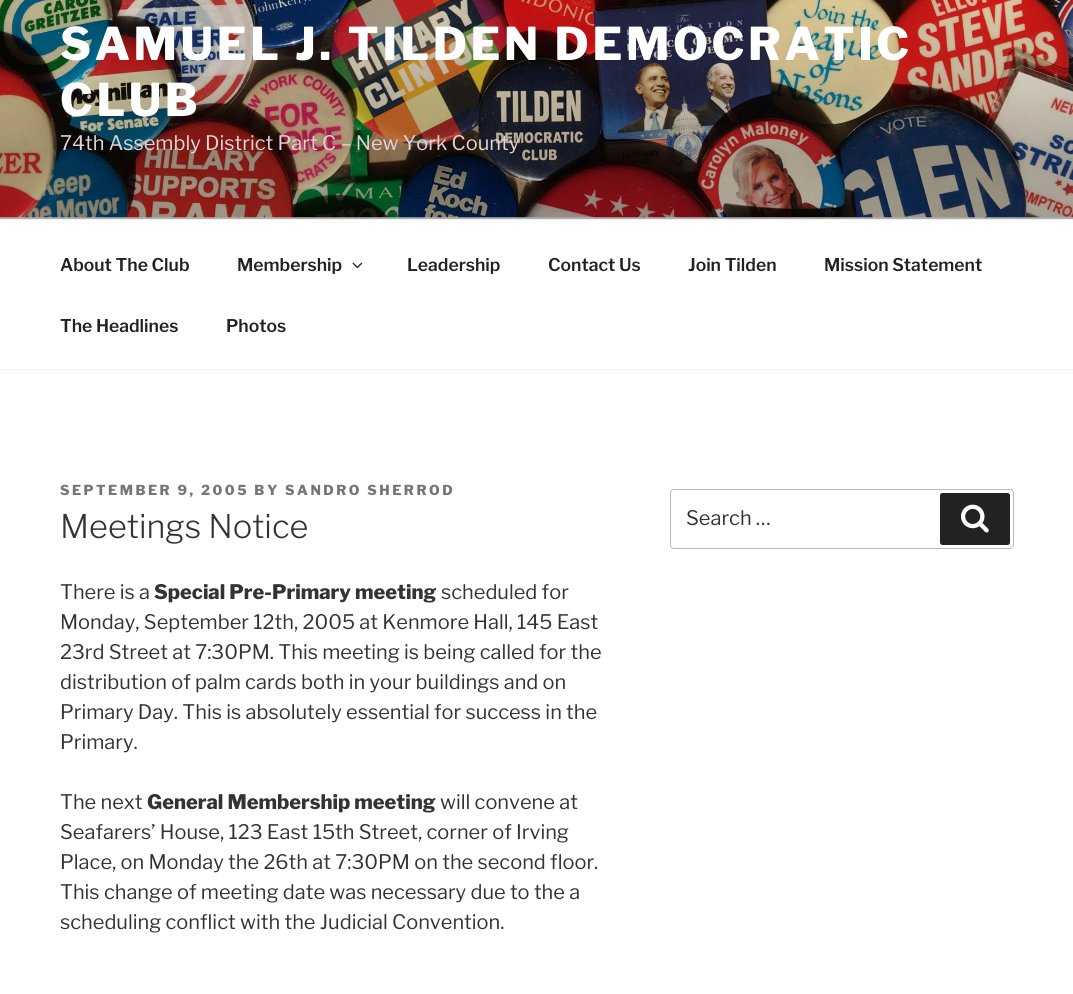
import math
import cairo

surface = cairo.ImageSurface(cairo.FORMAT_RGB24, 1073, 994)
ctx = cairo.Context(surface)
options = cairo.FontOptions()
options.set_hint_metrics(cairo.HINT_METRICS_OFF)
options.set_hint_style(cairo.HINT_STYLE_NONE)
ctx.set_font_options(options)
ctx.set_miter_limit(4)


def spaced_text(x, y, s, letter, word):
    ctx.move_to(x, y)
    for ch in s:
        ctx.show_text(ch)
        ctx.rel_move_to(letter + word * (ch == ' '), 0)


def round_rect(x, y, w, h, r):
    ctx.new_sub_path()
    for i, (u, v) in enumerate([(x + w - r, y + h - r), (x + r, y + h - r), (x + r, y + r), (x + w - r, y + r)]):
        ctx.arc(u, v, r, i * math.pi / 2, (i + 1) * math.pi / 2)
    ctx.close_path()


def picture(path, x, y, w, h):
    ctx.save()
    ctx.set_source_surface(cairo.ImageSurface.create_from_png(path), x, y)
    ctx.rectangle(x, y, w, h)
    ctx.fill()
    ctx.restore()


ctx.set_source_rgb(1, 1, 1)
ctx.paint()
ctx.set_source_rgb(0.98, 0.98, 0.98)
ctx.rectangle(0, 217, 1073, 2)
ctx.fill()
picture("img1.png", 0, 0, 1073, 218)
gradient = cairo.LinearGradient(537, -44, 537, 219)
gradient.add_color_stop_rgba(0, 0, 0, 0, 0)
gradient.add_color_stop_rgba(0.75, 0, 0, 0, 0.3)
gradient.add_color_stop_rgba(1, 0, 0, 0, 0.3)
ctx.set_source(gradient)
ctx.rectangle(0, 0, 1073, 219)
ctx.fill()
ctx.select_font_face("Libre Franklin Thin")
ctx.set_font_size(45)
ctx.set_source_rgb(1, 1, 1)
spaced_text(60, 60, "SAMUEL J. TILDEN DEMOCRATIC", 3.6, 0)
spaced_text(60, 116, "CLUB", 3.6, 0)
ctx.select_font_face("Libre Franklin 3 Thin")
ctx.set_font_size(20)
ctx.set_source_rgb(0.871, 0.839, 0.835)
ctx.move_to(60, 150)
ctx.show_text("74th Assembly District Part C – New York County")
ctx.set_source_rgb(0.933, 0.933, 0.933)
ctx.rectangle(0, 219, 1073, 1)
ctx.fill()
ctx.rectangle(0, 369, 1073, 1)
ctx.fill()
ctx.select_font_face("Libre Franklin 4 Thin")
ctx.set_font_size(17.5)
ctx.set_source_rgb(0.133, 0.133, 0.133)
ctx.move_to(60, 271)
ctx.show_text("About The Club")
ctx.move_to(237, 271)
ctx.show_text("Membership")
picture("img2.png", 352, 262, 11, 7)
ctx.move_to(407, 271)
ctx.show_text("Leadership")
ctx.move_to(548, 271)
ctx.show_text("Contact Us")
ctx.move_to(688, 271)
ctx.show_text("Join Tilden")
ctx.move_to(824, 271)
ctx.show_text("Mission Statement")
ctx.move_to(60, 332)
ctx.show_text("The Headlines")
ctx.move_to(226, 332)
ctx.show_text("Photos")
ctx.select_font_face("Libre Franklin Thin")
ctx.set_font_size(13.75)
ctx.set_source_rgb(0.463, 0.463, 0.463)
spaced_text(60, 495, "SEPTEMBER 9, 2005 BY SANDRO SHERROD", 2.5, 0)
ctx.select_font_face("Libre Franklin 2 Thin")
ctx.set_font_size(32.5)
ctx.set_source_rgb(0.2, 0.2, 0.2)
ctx.move_to(60, 538)
ctx.show_text("Meetings Notice")
ctx.select_font_face("Libre Franklin 3 Thin")
ctx.set_font_size(20)
ctx.move_to(60, 599)
ctx.show_text("There is a")
ctx.select_font_face("Libre Franklin Thin")
ctx.move_to(154, 599)
ctx.show_text("Special Pre-Primary meeting")
ctx.select_font_face("Libre Franklin 3 Thin")
ctx.move_to(441, 599)
ctx.show_text("scheduled for")
ctx.move_to(60, 629)
ctx.show_text("Monday, September 12th, 2005 at Kenmore Hall, 145 East")
ctx.move_to(60, 659)
ctx.show_text("23rd Street at 7:30PM. This meeting is being called for the")
ctx.move_to(60, 689)
ctx.show_text("distribution of palm cards both in your buildings and on")
ctx.move_to(60, 719)
ctx.show_text("Primary Day. This is absolutely essential for success in the")
ctx.move_to(60, 749)
ctx.show_text("Primary.")
ctx.move_to(60, 809)
ctx.show_text("The next")
ctx.select_font_face("Libre Franklin Thin")
ctx.move_to(147, 809)
ctx.show_text("General Membership meeting")
ctx.select_font_face("Libre Franklin 3 Thin")
ctx.move_to(440, 809)
ctx.show_text("will convene at")
ctx.move_to(60, 839)
ctx.show_text("Seafarers’ House, 123 East 15th Street, corner of Irving")
ctx.move_to(60, 869)
ctx.show_text("Place, on Monday the 26th at 7:30PM on the second floor.")
ctx.move_to(60, 899)
ctx.show_text("This change of meeting date was necessary due to the a")
ctx.move_to(60, 929)
ctx.show_text("scheduling conflict with the Judicial Convention.")
round_rect(670.5, 489.5, 343, 59, 3.5)
ctx.set_source_rgb(0.733, 0.733, 0.733)
ctx.set_line_width(1)
ctx.stroke()
ctx.set_source_rgb(0.2, 0.2, 0.2)
ctx.move_to(686, 525)
ctx.show_text("Search …")
ctx.set_source_rgb(0.133, 0.133, 0.133)
round_rect(940, 493, 70, 52, 2.5)
ctx.fill()
picture("img3.png", 960, 504, 29, 29)
surface.write_to_png("page.png")
